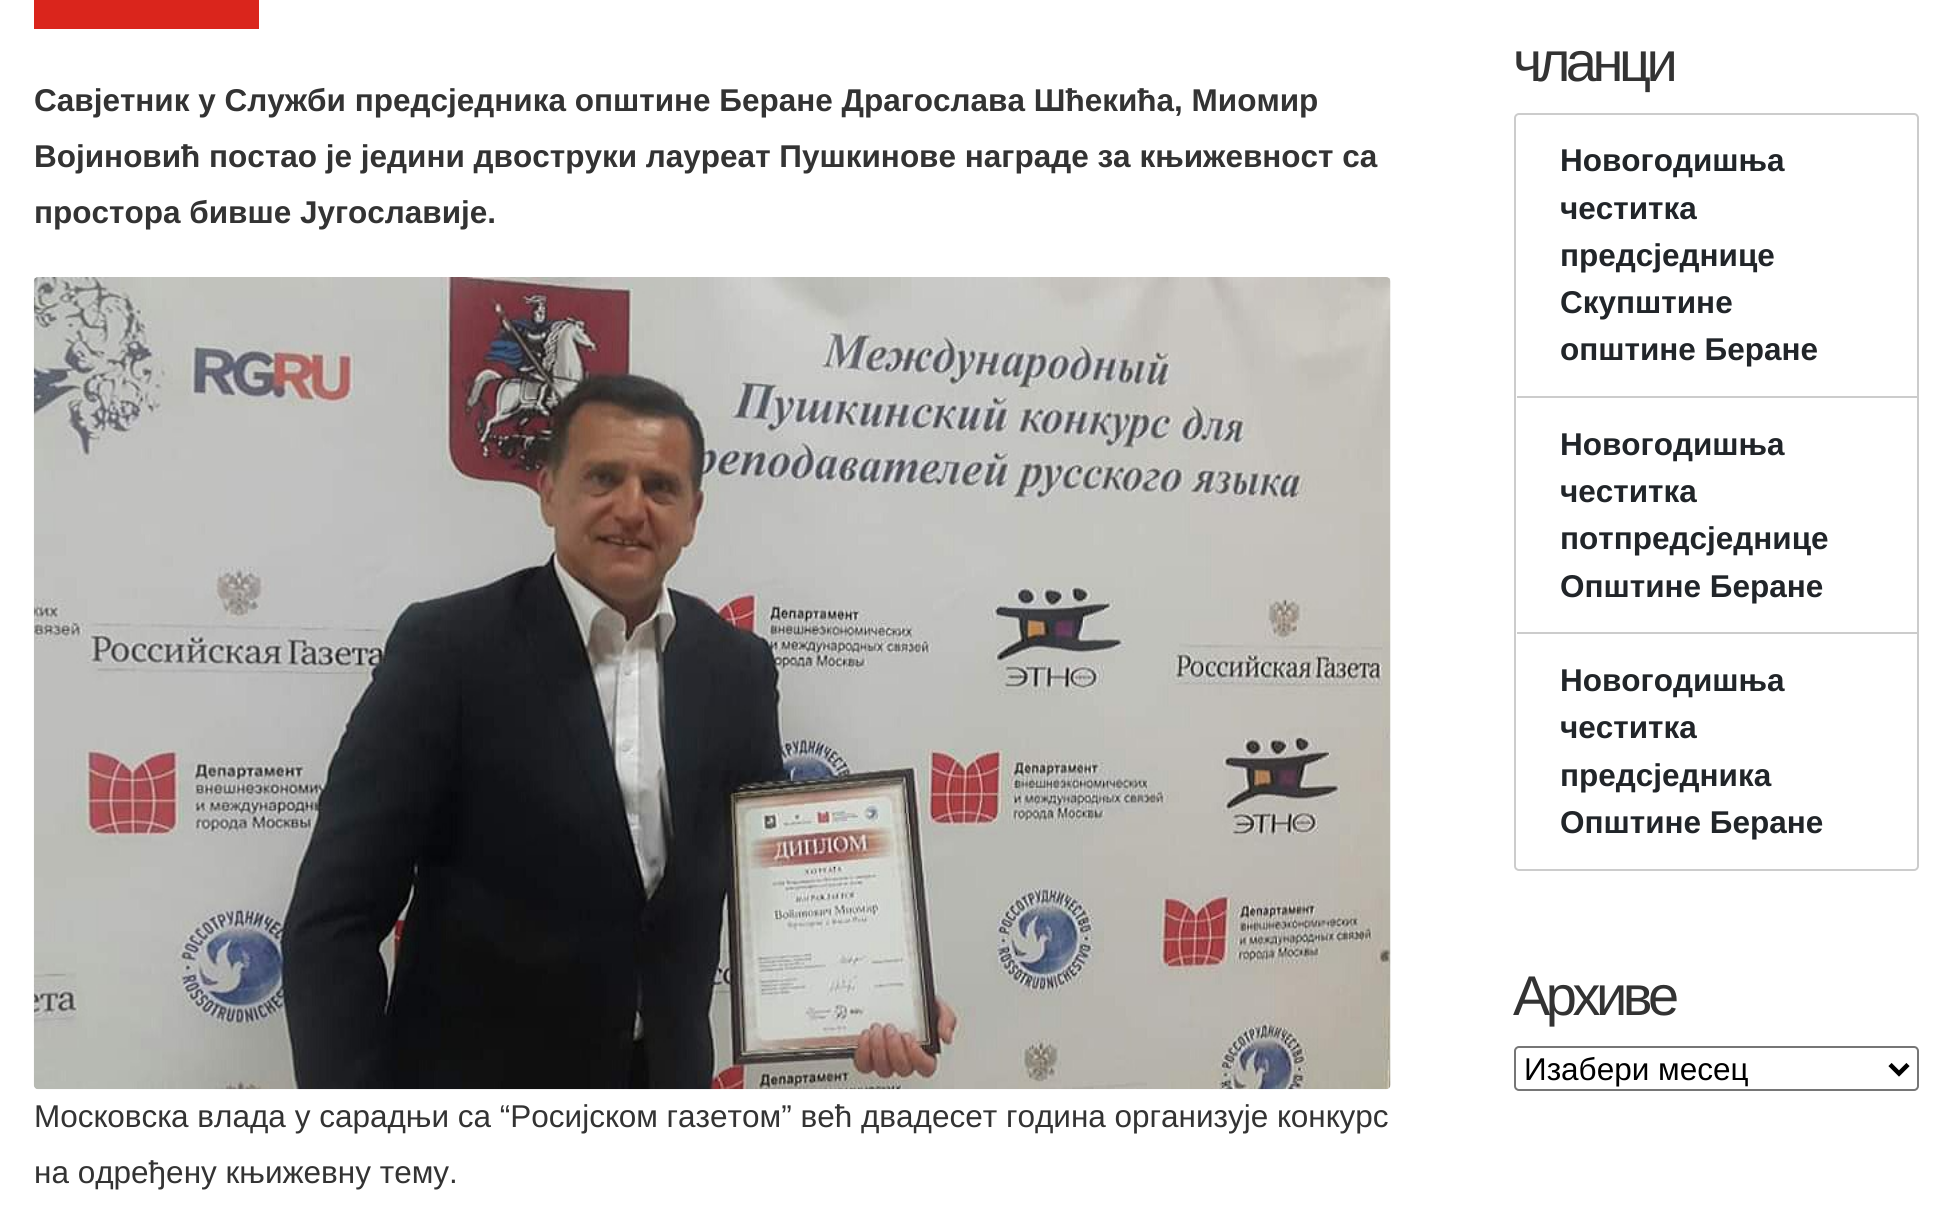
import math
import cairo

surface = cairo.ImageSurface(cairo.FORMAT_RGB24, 1951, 1217)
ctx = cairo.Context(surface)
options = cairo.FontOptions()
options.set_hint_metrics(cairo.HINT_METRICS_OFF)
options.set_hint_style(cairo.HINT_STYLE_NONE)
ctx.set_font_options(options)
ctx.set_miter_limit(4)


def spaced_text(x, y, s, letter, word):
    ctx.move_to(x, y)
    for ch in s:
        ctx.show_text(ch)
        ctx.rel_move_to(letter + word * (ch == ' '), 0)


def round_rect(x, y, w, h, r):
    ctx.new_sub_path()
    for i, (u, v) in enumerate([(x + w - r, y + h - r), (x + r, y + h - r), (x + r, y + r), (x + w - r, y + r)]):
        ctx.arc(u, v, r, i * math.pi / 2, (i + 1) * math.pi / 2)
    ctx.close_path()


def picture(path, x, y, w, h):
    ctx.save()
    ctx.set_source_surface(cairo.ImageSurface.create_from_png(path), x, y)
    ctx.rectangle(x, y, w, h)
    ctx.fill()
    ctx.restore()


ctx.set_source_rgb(1, 1, 1)
ctx.paint()
ctx.set_source_rgb(0.855, 0.145, 0.11)
ctx.rectangle(34, 0, 225, 29)
ctx.fill()
ctx.select_font_face("Liberation Sans", cairo.FONT_SLANT_NORMAL, cairo.FONT_WEIGHT_BOLD)
ctx.set_font_size(31.5)
ctx.set_source_rgb(0.2, 0.2, 0.2)
ctx.move_to(34, 111)
ctx.show_text("Савјетник у Служби предсједника oпштине Беране Драгослава Шћекића, Миомир")
ctx.move_to(34, 167)
ctx.show_text("Војиновић постао је једини двоструки лауреат Пушкинове награде за књижевност са")
ctx.move_to(34, 223)
ctx.show_text("простора бивше Југославије.")
picture("img1.png", 33, 277, 1358, 813)
ctx.select_font_face("Liberation Sans")
ctx.move_to(34, 1127)
ctx.show_text("Московска влада у сарадњи са “Росијском газетом” већ двадесет година организује конкурс")
ctx.move_to(34, 1183)
ctx.show_text("на одређену књижевну тему.")
ctx.set_font_size(56)
spaced_text(1513, 81, "чланци", -4.5, 0)
round_rect(1515, 114, 403, 756, 4)
ctx.set_source_rgb(0.8, 0.8, 0.8)
ctx.stroke()
ctx.select_font_face("Liberation Sans", cairo.FONT_SLANT_NORMAL, cairo.FONT_WEIGHT_BOLD)
ctx.set_font_size(31.5)
ctx.set_source_rgb(0.129, 0.145, 0.161)
ctx.move_to(1560, 171)
ctx.show_text("Новогодишња")
ctx.move_to(1560, 219)
ctx.show_text("честитка")
ctx.move_to(1560, 266)
ctx.show_text("предсједнице")
ctx.move_to(1560, 313)
ctx.show_text("Скупштине")
ctx.move_to(1560, 360)
ctx.show_text("општине Беране")
ctx.set_source_rgb(0.8, 0.8, 0.8)
ctx.rectangle(1517, 396, 400, 2)
ctx.fill()
ctx.set_source_rgb(0.129, 0.145, 0.161)
ctx.move_to(1560, 455)
ctx.show_text("Новогодишња")
ctx.move_to(1560, 502)
ctx.show_text("честитка")
ctx.move_to(1560, 549)
ctx.show_text("потпредсједнице")
ctx.move_to(1560, 597)
ctx.show_text("Општине Беране")
ctx.set_source_rgb(0.8, 0.8, 0.8)
ctx.rectangle(1517, 632, 400, 2)
ctx.fill()
ctx.set_source_rgb(0.129, 0.145, 0.161)
ctx.move_to(1560, 691)
ctx.show_text("Новогодишња")
ctx.move_to(1560, 738)
ctx.show_text("честитка")
ctx.move_to(1560, 786)
ctx.show_text("предсједника")
ctx.move_to(1560, 833)
ctx.show_text("Општине Беране")
ctx.select_font_face("Liberation Sans")
ctx.set_font_size(56)
ctx.set_source_rgb(0.2, 0.2, 0.2)
spaced_text(1513, 1015, "Архиве", -4.5, 0)
round_rect(1515, 1047, 403, 43, 4)
ctx.set_source_rgb(0.463, 0.463, 0.463)
ctx.stroke()
ctx.new_path()
ctx.move_to(1890, 1064.5)
ctx.line_to(1899, 1073.5)
ctx.line_to(1908, 1064.5)
ctx.set_source_rgb(0, 0, 0)
ctx.set_line_width(4.5)
ctx.stroke()
ctx.set_font_size(31.5)
ctx.move_to(1524, 1080)
ctx.show_text("Изабери месец")
surface.write_to_png("page.png")
